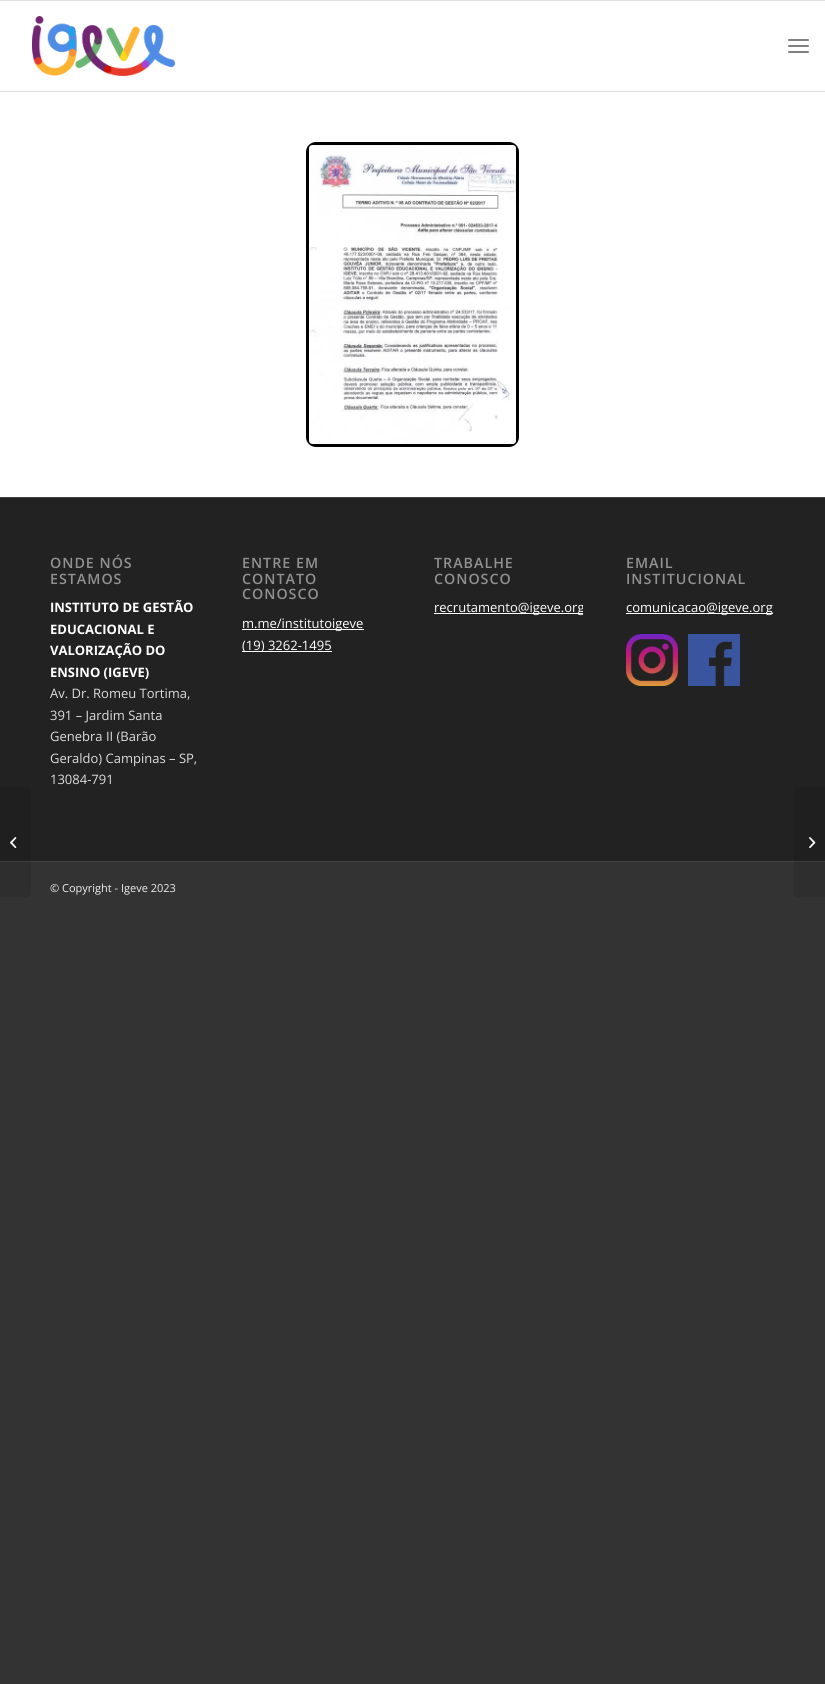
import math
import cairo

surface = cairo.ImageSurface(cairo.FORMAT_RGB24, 825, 1684)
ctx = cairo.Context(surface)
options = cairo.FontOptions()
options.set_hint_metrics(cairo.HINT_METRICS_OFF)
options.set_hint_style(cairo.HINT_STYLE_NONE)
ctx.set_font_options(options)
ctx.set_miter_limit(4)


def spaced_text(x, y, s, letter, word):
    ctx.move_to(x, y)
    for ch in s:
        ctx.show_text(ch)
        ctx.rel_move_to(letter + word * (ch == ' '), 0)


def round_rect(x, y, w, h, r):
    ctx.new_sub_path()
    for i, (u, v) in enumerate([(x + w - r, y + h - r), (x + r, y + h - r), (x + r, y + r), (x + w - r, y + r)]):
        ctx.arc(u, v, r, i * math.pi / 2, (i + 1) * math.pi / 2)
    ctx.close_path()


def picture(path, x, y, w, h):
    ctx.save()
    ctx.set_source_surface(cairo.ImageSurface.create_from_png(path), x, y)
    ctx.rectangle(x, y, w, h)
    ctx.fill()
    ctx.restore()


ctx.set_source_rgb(0.2, 0.2, 0.2)
ctx.paint()
ctx.set_source_rgb(1, 1, 1)
ctx.rectangle(0, 1, 825, 496)
ctx.fill()
ctx.set_source_rgb(0.882, 0.882, 0.882)
ctx.rectangle(0, 0, 825, 1)
ctx.fill()
ctx.rectangle(0, 91, 825, 1)
ctx.fill()
picture("img1.png", 32, 16, 143, 60)
ctx.set_source_rgb(0.502, 0.502, 0.502)
round_rect(788, 45, 21, 2, 1)
ctx.fill()
round_rect(788, 39, 21, 2, 1)
ctx.fill()
round_rect(788, 51, 21, 2, 1)
ctx.fill()
ctx.set_source_rgb(0.133, 0.133, 0.133)
ctx.rectangle(0, 498, 825, 363)
ctx.fill()
ctx.set_source_rgb(0.267, 0.267, 0.267)
ctx.rectangle(0, 861, 825, 1)
ctx.fill()
ctx.set_source_rgba(0, 0, 0, 0.1)
ctx.new_path()
ctx.move_to(0, 787)
ctx.line_to(27, 787)
ctx.curve_to(29, 787, 31, 789, 31, 791)
ctx.line_to(31, 893)
ctx.curve_to(31, 895, 29, 897, 27, 897)
ctx.line_to(0, 897)
ctx.close_path()
ctx.fill()
picture("img2.png", 10, 837, 7, 12)
round_rect(307.5, 143.5, 210, 302, 8.5)
ctx.set_source_rgb(0, 0, 0)
ctx.set_line_width(3)
ctx.stroke()
picture("img3.png", 309, 145, 207, 299)
ctx.set_source_rgb(0.267, 0.267, 0.267)
ctx.rectangle(0, 497, 825, 1)
ctx.fill()
ctx.select_font_face("Open Sans SemiBold")
ctx.set_font_size(14.25)
ctx.set_source_rgb(0.569, 0.569, 0.569)
spaced_text(50, 568, "ONDE NÓS", 1, 0)
spaced_text(50, 584, "ESTAMOS", 1, 0)
ctx.select_font_face("Open Sans", cairo.FONT_SLANT_NORMAL, cairo.FONT_WEIGHT_BOLD)
ctx.set_font_size(13)
ctx.set_source_rgb(1, 1, 1)
ctx.move_to(50, 612)
ctx.show_text("INSTITUTO DE GESTÃO")
ctx.move_to(50, 634)
ctx.show_text("EDUCACIONAL E")
ctx.move_to(50, 655)
ctx.show_text("VALORIZAÇÃO DO")
ctx.move_to(50, 677)
ctx.show_text("ENSINO (IGEVE)")
ctx.select_font_face("Open Sans")
ctx.set_source_rgb(0.867, 0.867, 0.867)
ctx.move_to(50, 698)
ctx.show_text("Av. Dr. Romeu Tortima,")
ctx.move_to(50, 720)
ctx.show_text("391 – Jardim Santa")
ctx.move_to(50, 741)
ctx.show_text("Genebra II (Barão")
ctx.move_to(50, 763)
ctx.show_text("Geraldo) Campinas – SP,")
ctx.move_to(50, 784)
ctx.show_text("13084-791")
ctx.select_font_face("Open Sans SemiBold")
ctx.set_font_size(14.25)
ctx.set_source_rgb(0.569, 0.569, 0.569)
spaced_text(242, 568, "ENTRE EM", 1, 0)
spaced_text(242, 584, "CONTATO", 1, 0)
spaced_text(242, 599, "CONOSCO", 1, 0)
ctx.set_source_rgb(1, 1, 1)
ctx.rectangle(242, 629, 122, 1)
ctx.fill()
ctx.select_font_face("Open Sans")
ctx.set_font_size(13)
ctx.move_to(242, 628)
ctx.show_text("m.me/institutoigeve")
ctx.rectangle(242, 651, 90, 1)
ctx.fill()
ctx.move_to(242, 650)
ctx.show_text("(19) 3262-1495")
ctx.select_font_face("Open Sans SemiBold")
ctx.set_font_size(14.25)
ctx.set_source_rgb(0.569, 0.569, 0.569)
spaced_text(434, 568, "TRABALHE", 1, 0)
spaced_text(434, 584, "CONOSCO", 1, 0)
ctx.set_source_rgb(1, 1, 1)
ctx.rectangle(434, 613, 149, 1)
ctx.fill()
ctx.save()
ctx.rectangle(434, 543, 149, 87)
ctx.clip()
ctx.select_font_face("Open Sans")
ctx.set_font_size(13)
ctx.move_to(434, 612)
ctx.show_text("recrutamento@igeve.org")
ctx.restore()
ctx.set_source_rgb(0.569, 0.569, 0.569)
spaced_text(626, 568, "EMAIL", 1, 0)
spaced_text(626, 584, "INSTITUCIONAL", 1, 0)
ctx.set_source_rgb(1, 1, 1)
ctx.rectangle(626, 613, 147, 1)
ctx.fill()
ctx.select_font_face("Open Sans")
ctx.set_font_size(13)
ctx.move_to(626, 612)
ctx.show_text("comunicacao@igeve.org")
picture("img4.png", 626, 634, 52, 52)
picture("img5.png", 688, 634, 52, 52)
ctx.set_font_size(11)
ctx.set_source_rgb(0.933, 0.933, 0.933)
ctx.move_to(50, 892)
ctx.show_text("© Copyright - Igeve 2023")
ctx.set_source_rgba(0, 0, 0, 0.1)
ctx.new_path()
ctx.move_to(798, 787)
ctx.line_to(825, 787)
ctx.line_to(825, 897)
ctx.line_to(798, 897)
ctx.curve_to(796, 897, 794, 895, 794, 893)
ctx.line_to(794, 791)
ctx.curve_to(794, 789, 796, 787, 798, 787)
ctx.close_path()
ctx.fill()
picture("img6.png", 809, 837, 7, 12)
surface.write_to_png("page.png")
